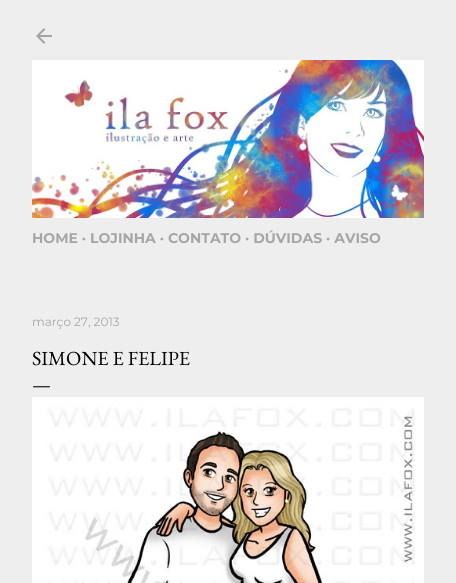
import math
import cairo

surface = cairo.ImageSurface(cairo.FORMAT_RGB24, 456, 583)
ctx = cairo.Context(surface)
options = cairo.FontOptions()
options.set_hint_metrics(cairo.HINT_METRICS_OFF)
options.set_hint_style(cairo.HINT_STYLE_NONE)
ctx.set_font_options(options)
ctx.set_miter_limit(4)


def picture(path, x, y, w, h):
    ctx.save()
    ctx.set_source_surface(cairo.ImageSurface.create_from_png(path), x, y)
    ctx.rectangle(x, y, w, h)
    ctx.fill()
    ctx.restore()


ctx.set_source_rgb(0.933, 0.933, 0.933)
ctx.paint()
picture("img1.png", 36, 28, 16, 16)
picture("img2.png", 32, 60, 392, 158)
ctx.select_font_face("Montserrat", cairo.FONT_SLANT_NORMAL, cairo.FONT_WEIGHT_BOLD)
ctx.set_font_size(14)
ctx.set_source_rgb(0.651, 0.651, 0.651)
ctx.move_to(32, 243)
ctx.show_text("HOME · LOJINHA · CONTATO · DÚVIDAS · AVISO")
ctx.select_font_face("Montserrat")
ctx.set_font_size(12)
ctx.move_to(32, 326)
ctx.show_text("março 27, 2013")
ctx.select_font_face("EB Garamond")
ctx.set_font_size(20)
ctx.set_source_rgb(0, 0, 0)
ctx.move_to(32, 365)
ctx.show_text("SIMONE E FELIPE")
ctx.move_to(32, 391)
ctx.show_text("—")
picture("img3.png", 32, 397, 392, 186)
surface.write_to_png("page.png")
